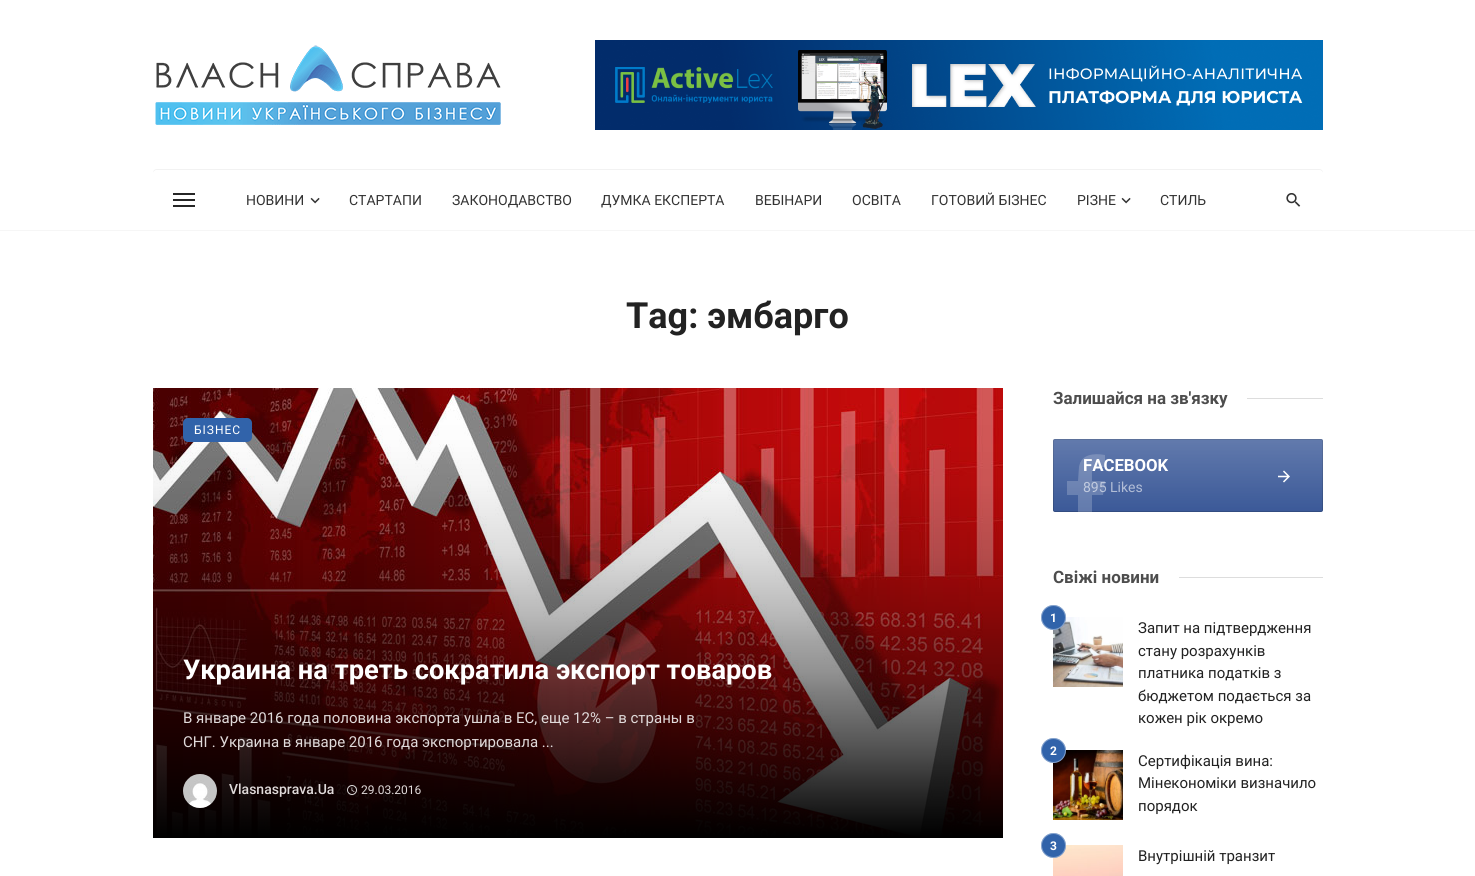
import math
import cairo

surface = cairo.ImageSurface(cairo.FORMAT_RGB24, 1475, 876)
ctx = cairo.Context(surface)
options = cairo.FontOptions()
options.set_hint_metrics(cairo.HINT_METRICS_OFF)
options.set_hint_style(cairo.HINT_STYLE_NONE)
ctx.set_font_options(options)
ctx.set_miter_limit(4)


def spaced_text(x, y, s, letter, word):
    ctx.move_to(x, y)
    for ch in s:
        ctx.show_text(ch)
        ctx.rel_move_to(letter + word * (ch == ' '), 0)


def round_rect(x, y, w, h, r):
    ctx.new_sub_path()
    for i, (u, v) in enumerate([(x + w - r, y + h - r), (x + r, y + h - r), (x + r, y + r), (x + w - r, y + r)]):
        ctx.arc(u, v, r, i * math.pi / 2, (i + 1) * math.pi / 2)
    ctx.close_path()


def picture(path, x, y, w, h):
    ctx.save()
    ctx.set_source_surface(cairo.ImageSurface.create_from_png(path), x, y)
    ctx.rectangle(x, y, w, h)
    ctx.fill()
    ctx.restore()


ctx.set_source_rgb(1, 1, 1)
ctx.paint()
ctx.set_source_rgb(0.961, 0.961, 0.961)
ctx.rectangle(0, 230, 1475, 1)
ctx.fill()
picture("img1.png", 155, 45, 346, 80)
picture("img2.png", 595, 40, 728, 90)
ctx.set_source_rgb(0.949, 0.949, 0.949)
ctx.new_path()
ctx.move_to(157, 169)
ctx.curve_to(154, 169, 153, 171, 153, 174)
ctx.curve_to(153, 172, 155, 170, 157, 170)
ctx.line_to(1319, 170)
ctx.curve_to(1321, 170, 1323, 172, 1323, 174)
ctx.curve_to(1323, 171, 1322, 169, 1319, 169)
ctx.close_path()
ctx.fill()
ctx.set_source_rgb(1, 1, 1)
round_rect(153, 170, 1170, 60, 4)
ctx.fill()
ctx.set_source_rgb(0.149, 0.149, 0.149)
ctx.rectangle(173, 199, 22, 2)
ctx.fill()
ctx.rectangle(173, 193, 22, 2)
ctx.fill()
ctx.rectangle(173, 205, 22, 2)
ctx.fill()
ctx.select_font_face("Roboto")
ctx.set_font_size(14)
ctx.set_source_rgb(0.2, 0.2, 0.2)
ctx.move_to(246, 205)
ctx.show_text("НОВИНИ")
picture("img3.png", 310, 197, 10, 7)
ctx.move_to(349, 205)
ctx.show_text("СТАРТАПИ")
ctx.move_to(452, 205)
ctx.show_text("ЗАКОНОДАВСТВО")
ctx.move_to(601, 205)
ctx.show_text("ДУМКА ЕКСПЕРТА")
ctx.move_to(755, 205)
ctx.show_text("ВЕБІНАРИ")
ctx.move_to(852, 205)
ctx.show_text("ОСВІТА")
ctx.move_to(931, 205)
ctx.show_text("ГОТОВИЙ БІЗНЕС")
ctx.move_to(1077, 205)
ctx.show_text("РІЗНЕ")
picture("img3.png", 1121, 197, 10, 7)
ctx.move_to(1160, 205)
ctx.show_text("СТИЛЬ")
picture("img4.png", 1286, 193, 15, 14)
ctx.select_font_face("Roboto", cairo.FONT_SLANT_NORMAL, cairo.FONT_WEIGHT_BOLD)
ctx.set_font_size(36)
ctx.set_source_rgb(0.133, 0.133, 0.133)
ctx.move_to(626, 328)
ctx.show_text("Tag: эмбарго")
picture("img5.png", 153, 388, 850, 450)
ctx.set_source_rgb(0.192, 0.388, 0.667)
round_rect(183, 418, 69, 24, 5)
ctx.fill()
ctx.select_font_face("Roboto")
ctx.set_font_size(12)
ctx.set_source_rgb(1, 1, 1)
spaced_text(194, 434, "БІЗНЕС", 1, 0)
ctx.select_font_face("Roboto", cairo.FONT_SLANT_NORMAL, cairo.FONT_WEIGHT_BOLD)
ctx.set_font_size(27.3)
ctx.move_to(183, 679)
ctx.show_text("Украина на треть сократила экспорт товаров")
ctx.select_font_face("Roboto")
ctx.set_font_size(15)
ctx.set_source_rgb(0.878, 0.855, 0.855)
ctx.move_to(183, 723)
ctx.show_text("В январе 2016 года половина экспорта ушла в ЕС, еще 12% – в страны в")
ctx.move_to(183, 747)
ctx.show_text("СНГ. Украина в январе 2016 года экспортировала ...")
picture("img6.png", 183, 774, 34, 34)
ctx.select_font_face("Roboto Medium")
ctx.set_font_size(14)
ctx.move_to(229, 794)
ctx.show_text("Vlasnasprava.Ua")
picture("img7.png", 347, 785, 10, 10)
ctx.select_font_face("Roboto")
ctx.set_font_size(12)
ctx.move_to(361, 794)
ctx.show_text("29.03.2016")
ctx.select_font_face("Roboto", cairo.FONT_SLANT_NORMAL, cairo.FONT_WEIGHT_BOLD)
ctx.set_font_size(17)
ctx.set_source_rgb(0.302, 0.302, 0.302)
ctx.move_to(1053, 404)
ctx.show_text("Залишайся на зв'язку")
ctx.set_source_rgb(0.867, 0.867, 0.867)
ctx.rectangle(1247, 398, 76, 1)
ctx.fill()
ctx.set_source_rgb(0.231, 0.349, 0.596)
round_rect(1053, 439, 270, 73, 2)
ctx.fill()
round_rect(1053.5, 439.5, 269, 72, 1.5)
ctx.set_source_rgba(0, 0, 0, 0.15)
ctx.set_line_width(1)
ctx.stroke()
picture("img8.png", 1278, 470, 12, 13)
gradient = cairo.LinearGradient(1188, 439, 1188, 512)
gradient.add_color_stop_rgba(0, 1, 1, 1, 0.2)
gradient.add_color_stop_rgba(1, 1, 1, 1, 0)
ctx.set_source(gradient)
round_rect(1053, 439, 270, 73, 2)
ctx.fill()
ctx.set_font_size(16.75)
ctx.set_source_rgb(1, 1, 1)
ctx.move_to(1083, 471)
ctx.show_text("FACEBOOK")
ctx.select_font_face("Roboto")
ctx.set_font_size(14)
ctx.set_source_rgb(0.694, 0.741, 0.839)
ctx.move_to(1083, 492)
ctx.show_text("895 Likes")
ctx.set_source_rgba(1, 1, 1, 0.2)
ctx.new_path()
ctx.move_to(1105, 455)
ctx.line_to(1105, 467)
ctx.curve_to(1090, 467, 1092, 467, 1092, 481)
ctx.line_to(1105, 481)
ctx.line_to(1103, 495)
ctx.line_to(1092, 495)
ctx.line_to(1092, 512)
ctx.line_to(1078, 512)
ctx.line_to(1078, 495)
ctx.line_to(1067, 495)
ctx.line_to(1067, 481)
ctx.line_to(1078, 481)
ctx.line_to(1079, 467)
ctx.curve_to(1081, 454, 1094, 453, 1105, 455)
ctx.close_path()
ctx.fill()
ctx.select_font_face("Roboto", cairo.FONT_SLANT_NORMAL, cairo.FONT_WEIGHT_BOLD)
ctx.set_font_size(17)
ctx.set_source_rgb(0.302, 0.302, 0.302)
ctx.move_to(1053, 583)
ctx.show_text("Свіжі новини")
ctx.set_source_rgb(0.867, 0.867, 0.867)
ctx.rectangle(1179, 577, 144, 1)
ctx.fill()
picture("img9.png", 1053, 617, 70, 70)
ctx.set_source_rgb(0.192, 0.388, 0.667)
ctx.arc(1053.5, 617.5, 12.5, 0, 2 * math.pi)
ctx.fill()
ctx.arc(1053.5, 617.5, 12, 0, 2 * math.pi)
ctx.set_source_rgba(1, 1, 1, 0.4)
ctx.stroke()
ctx.set_font_size(12)
ctx.set_source_rgb(1, 1, 1)
ctx.move_to(1050, 622)
ctx.show_text("1")
ctx.select_font_face("Roboto")
ctx.set_font_size(15)
ctx.set_source_rgb(0.133, 0.133, 0.133)
ctx.move_to(1138, 633)
ctx.show_text("Запит на підтвердження")
ctx.move_to(1138, 656)
ctx.show_text("стану розрахунків")
ctx.move_to(1138, 678)
ctx.show_text("платника податків з")
ctx.move_to(1138, 701)
ctx.show_text("бюджетом подається за")
ctx.move_to(1138, 723)
ctx.show_text("кожен рік окремо")
picture("img10.png", 1053, 750, 70, 70)
ctx.set_source_rgb(0.192, 0.388, 0.667)
ctx.arc(1053.5, 750.5, 12.5, 0, 2 * math.pi)
ctx.fill()
ctx.arc(1053.5, 750.5, 12, 0, 2 * math.pi)
ctx.set_source_rgba(1, 1, 1, 0.4)
ctx.stroke()
ctx.select_font_face("Roboto", cairo.FONT_SLANT_NORMAL, cairo.FONT_WEIGHT_BOLD)
ctx.set_font_size(12)
ctx.set_source_rgb(1, 1, 1)
ctx.move_to(1050, 755)
ctx.show_text("2")
ctx.select_font_face("Roboto")
ctx.set_font_size(15)
ctx.set_source_rgb(0.133, 0.133, 0.133)
ctx.move_to(1138, 766)
ctx.show_text("Сертифікація вина:")
ctx.move_to(1138, 788)
ctx.show_text("Мінекономіки визначило")
ctx.move_to(1138, 811)
ctx.show_text("порядок")
picture("img11.png", 1053, 845, 70, 31)
ctx.set_source_rgb(0.192, 0.388, 0.667)
ctx.arc(1053.5, 845.5, 12.5, 0, 2 * math.pi)
ctx.fill()
ctx.arc(1053.5, 845.5, 12, 0, 2 * math.pi)
ctx.set_source_rgba(1, 1, 1, 0.4)
ctx.stroke()
ctx.select_font_face("Roboto", cairo.FONT_SLANT_NORMAL, cairo.FONT_WEIGHT_BOLD)
ctx.set_font_size(12)
ctx.set_source_rgb(1, 1, 1)
ctx.move_to(1050, 850)
ctx.show_text("3")
ctx.select_font_face("Roboto")
ctx.set_font_size(15)
ctx.set_source_rgb(0.133, 0.133, 0.133)
ctx.move_to(1138, 861)
ctx.show_text("Внутрішній транзит")
surface.write_to_png("page.png")
